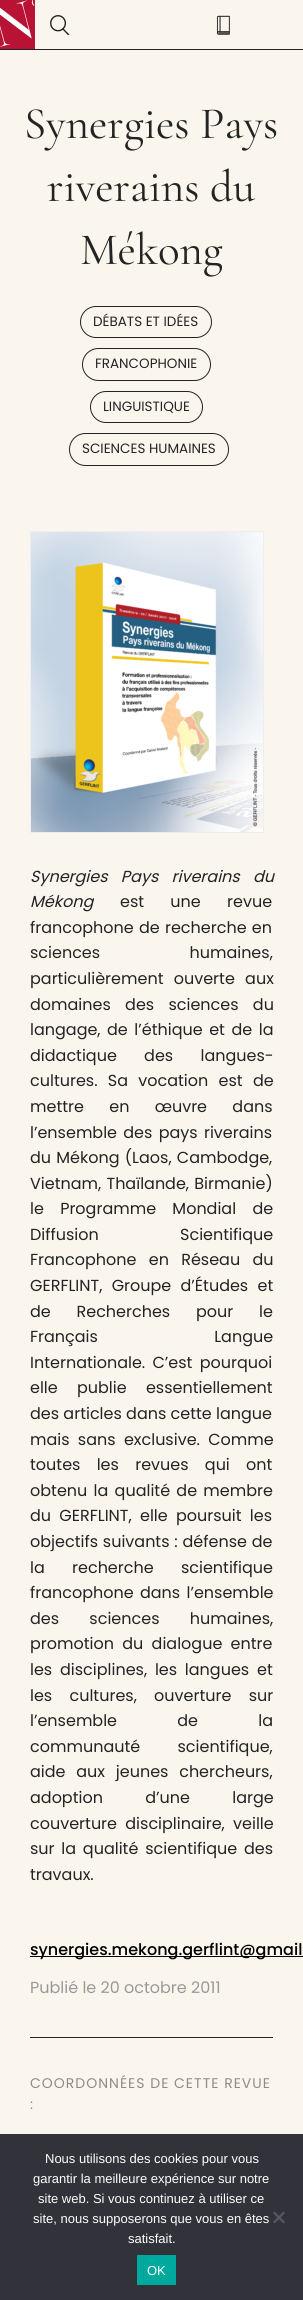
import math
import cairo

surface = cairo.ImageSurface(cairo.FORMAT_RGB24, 303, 2300)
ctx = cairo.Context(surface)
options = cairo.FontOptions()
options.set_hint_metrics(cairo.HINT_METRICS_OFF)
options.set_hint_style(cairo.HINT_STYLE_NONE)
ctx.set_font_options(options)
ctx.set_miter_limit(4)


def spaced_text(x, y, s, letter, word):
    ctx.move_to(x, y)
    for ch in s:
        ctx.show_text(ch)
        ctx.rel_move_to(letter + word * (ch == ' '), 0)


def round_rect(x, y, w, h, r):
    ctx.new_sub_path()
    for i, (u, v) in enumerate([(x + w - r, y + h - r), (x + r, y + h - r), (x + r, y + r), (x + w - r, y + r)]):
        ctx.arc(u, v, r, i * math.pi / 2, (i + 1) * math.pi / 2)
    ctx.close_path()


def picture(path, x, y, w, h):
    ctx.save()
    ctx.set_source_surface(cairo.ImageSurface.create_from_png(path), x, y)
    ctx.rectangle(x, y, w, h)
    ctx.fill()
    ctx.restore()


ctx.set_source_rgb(0.98, 0.961, 0.929)
ctx.paint()
ctx.set_source_rgb(0.137, 0.137, 0.137)
ctx.rectangle(0, 49, 303, 1)
ctx.fill()
picture("img1.png", 0, 0, 35, 49)
picture("img2.png", 50, 15, 20, 20)
picture("img3.png", 216, 15, 14, 20)
ctx.select_font_face("Cormorant Garamond Light")
ctx.set_font_size(45)
ctx.move_to(24, 138)
ctx.show_text("Synergies Pays")
ctx.move_to(47, 201)
ctx.show_text("riverains du")
ctx.move_to(80, 264)
ctx.show_text("Mékong")
round_rect(80.5, 306.5, 131, 31, 15.5)
ctx.set_line_width(1)
ctx.stroke()
ctx.select_font_face("Poppins")
ctx.set_font_size(13.5)
ctx.move_to(93, 326)
ctx.show_text("DÉBATS ET IDÉES")
round_rect(82.5, 348.5, 128, 32, 16)
ctx.stroke()
ctx.move_to(95, 368)
ctx.show_text("FRANCOPHONIE")
round_rect(90.5, 391.5, 112, 31, 15.5)
ctx.stroke()
ctx.move_to(103, 411)
ctx.show_text("LINGUISTIQUE")
round_rect(69.5, 433.5, 159, 32, 16)
ctx.stroke()
ctx.move_to(82, 453)
ctx.show_text("SCIENCES HUMAINES")
ctx.rectangle(30.5, 531.5, 233, 301)
ctx.set_source_rgb(0.933, 0.933, 0.933)
ctx.stroke()
picture("img4.png", 31, 532, 232, 300)
ctx.select_font_face("Poppins", cairo.FONT_SLANT_ITALIC)
ctx.set_font_size(16)
ctx.set_source_rgb(0.137, 0.137, 0.137)
spaced_text(30, 882, "Synergies Pays riverains du", 0, 9)
ctx.move_to(30, 907)
ctx.show_text("Mékong")
ctx.select_font_face("Poppins")
spaced_text(120, 907, "est une revue", 0, 22)
spaced_text(30, 933, "francophone de recherche en", 0, 1)
spaced_text(30, 958, "sciences humaines,", 0, 85)
spaced_text(30, 984, "particulièrement ouverte aux", 0, 6)
spaced_text(30, 1010, "domaines des sciences du", 0, 10)
spaced_text(30, 1035, "langage, de l’éthique et de la", 0, 2.25)
spaced_text(30, 1061, "didactique des langues-", 0, 23)
spaced_text(30, 1086, "cultures. Sa vocation est de", 0, 6)
spaced_text(30, 1112, "mettre en œuvre dans", 0, 21)
spaced_text(30, 1138, "l’ensemble des pays riverains", 0, 2)
spaced_text(30, 1163, "du Mékong (Laos, Cambodge,", 0, 1)
spaced_text(30, 1189, "Vietnam, Thaïlande, Birmanie)", 0, 1)
spaced_text(30, 1214, "le Programme Mondial de", 0, 12)
spaced_text(30, 1240, "Diffusion Scientifique", 0, 77)
spaced_text(30, 1265, "Francophone en Réseau du", 0, 8)
spaced_text(30, 1291, "GERFLINT, Groupe d’Études et", 0, 5)
spaced_text(30, 1317, "de Recherches pour le", 0, 21.5)
spaced_text(30, 1342, "Français Langue", 0, 112)
spaced_text(30, 1368, "Internationale. C’est pourquoi", 0, 3)
spaced_text(30, 1393, "elle publie essentiellement", 0, 15)
ctx.move_to(30, 1419)
ctx.show_text("des articles dans cette langue")
spaced_text(30, 1445, "mais sans exclusive. Comme", 0, 4)
spaced_text(30, 1470, "toutes les revues qui ont", 0, 12)
spaced_text(30, 1496, "obtenu la qualité de membre", 0, 2)
spaced_text(30, 1521, "du GERFLINT, elle poursuit les", 0, 4)
spaced_text(30, 1547, "objectifs suivants : défense de", 0, 0.5)
spaced_text(30, 1573, "la recherche scientifique", 0, 23)
spaced_text(30, 1598, "francophone dans l’ensemble", 0, 2)
spaced_text(30, 1624, "des sciences humaines,", 0, 26)
spaced_text(30, 1649, "promotion du dialogue entre", 0, 4)
spaced_text(30, 1675, "les disciplines, les langues et", 0, 3.5)
spaced_text(30, 1701, "les cultures, ouverture sur", 0, 13)
spaced_text(30, 1726, "l’ensemble de la", 0, 56)
spaced_text(30, 1752, "communauté scientifique,", 0, 33)
spaced_text(30, 1777, "aide aux jeunes chercheurs,", 0, 6.5)
spaced_text(30, 1803, "adoption d’une large", 0, 38)
spaced_text(30, 1829, "couverture disciplinaire, veille", 0, 4)
spaced_text(30, 1854, "sur la qualité scientifique des", 0, 2.5)
ctx.move_to(30, 1880)
ctx.show_text("travaux.")
ctx.set_source_rgb(0, 0, 0)
ctx.rectangle(30, 1956, 273, 1)
ctx.fill()
ctx.select_font_face("Poppins Medium")
ctx.move_to(30, 1955)
ctx.show_text("synergies.mekong.gerflint@gmail")
ctx.select_font_face("Poppins")
ctx.set_source_rgb(0.6, 0.6, 0.6)
ctx.move_to(30, 1993)
ctx.show_text("Publié le 20 octobre 2011")
ctx.set_source_rgb(0.141, 0.141, 0.141)
ctx.rectangle(30, 2037, 243, 1)
ctx.fill()
ctx.set_font_size(14)
ctx.set_source_rgb(0.561, 0.549, 0.533)
spaced_text(30, 2088, "COORDONNÉES DE CETTE REVUE", 1, 0)
spaced_text(30, 2109, ":", 1, 0)
ctx.set_source_rgb(0.196, 0.196, 0.227)
ctx.rectangle(0, 2134, 303, 166)
ctx.fill()
ctx.select_font_face("Liberation Sans")
ctx.set_font_size(13)
ctx.set_source_rgb(1, 1, 1)
ctx.move_to(45, 2163)
ctx.show_text("Nous utilisons des cookies pour vous")
ctx.move_to(33, 2183)
ctx.show_text("garantir la meilleure expérience sur notre")
ctx.move_to(38, 2203)
ctx.show_text("site web. Si vous continuez à utiliser ce")
ctx.move_to(33, 2223)
ctx.show_text("site, nous supposerons que vous en êtes")
ctx.move_to(128, 2243)
ctx.show_text("satisfait.")
ctx.set_source_rgb(0.349, 0.349, 0.365)
ctx.new_path()
ctx.move_to(283.5, 2211.5)
ctx.line_to(285, 2213)
ctx.line_to(274.5, 2223.5)
ctx.line_to(273, 2222)
ctx.close_path()
ctx.fill()
ctx.new_path()
ctx.move_to(273, 2213)
ctx.line_to(274.5, 2211.5)
ctx.line_to(285, 2222)
ctx.line_to(283.5, 2223.5)
ctx.close_path()
ctx.fill()
ctx.set_source_rgb(0, 0.663, 0.616)
ctx.rectangle(137, 2255, 39, 30)
ctx.fill()
ctx.set_source_rgb(1, 1, 1)
ctx.move_to(147, 2275)
ctx.show_text("OK")
surface.write_to_png("page.png")
